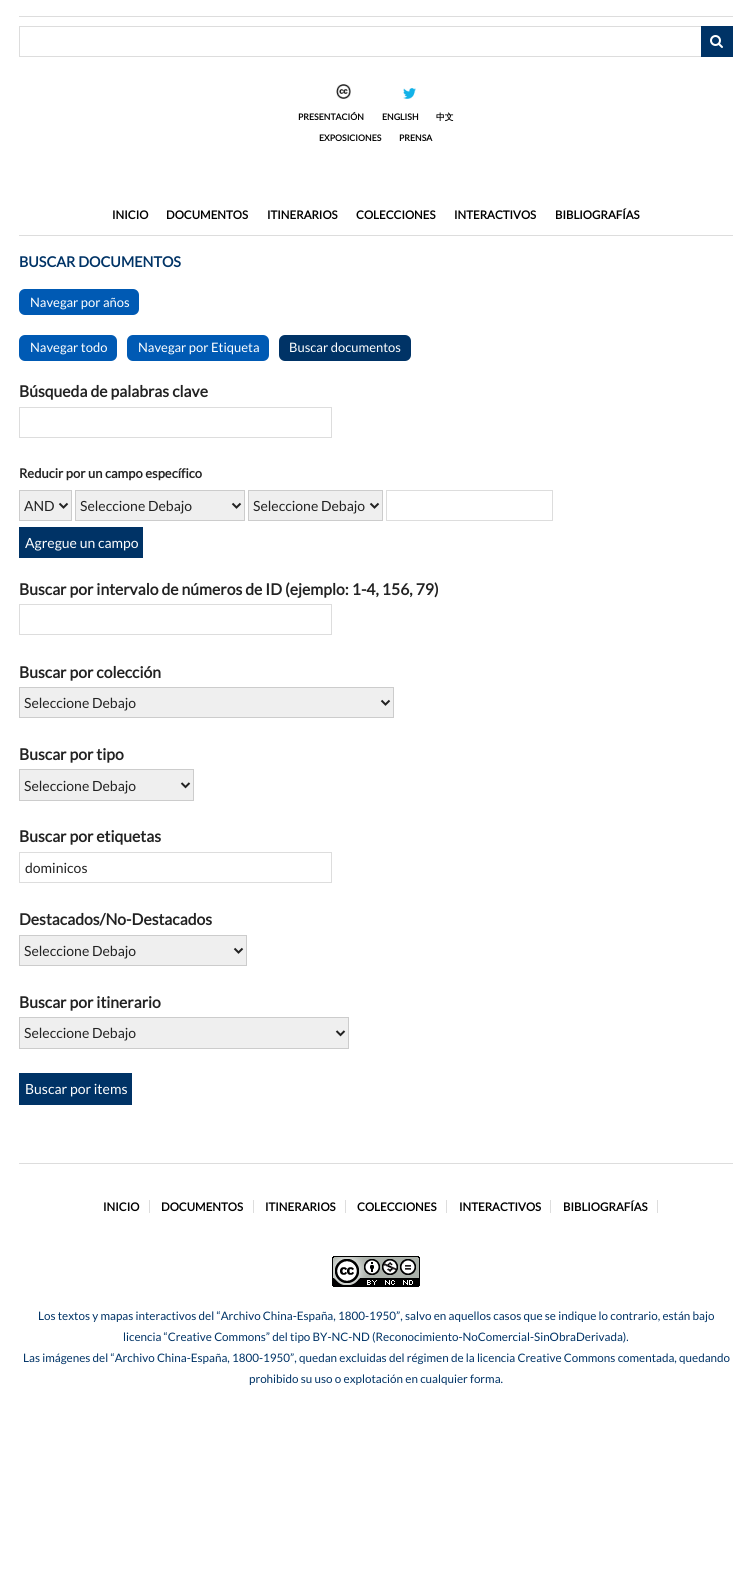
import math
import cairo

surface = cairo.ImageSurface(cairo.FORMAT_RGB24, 752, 1577)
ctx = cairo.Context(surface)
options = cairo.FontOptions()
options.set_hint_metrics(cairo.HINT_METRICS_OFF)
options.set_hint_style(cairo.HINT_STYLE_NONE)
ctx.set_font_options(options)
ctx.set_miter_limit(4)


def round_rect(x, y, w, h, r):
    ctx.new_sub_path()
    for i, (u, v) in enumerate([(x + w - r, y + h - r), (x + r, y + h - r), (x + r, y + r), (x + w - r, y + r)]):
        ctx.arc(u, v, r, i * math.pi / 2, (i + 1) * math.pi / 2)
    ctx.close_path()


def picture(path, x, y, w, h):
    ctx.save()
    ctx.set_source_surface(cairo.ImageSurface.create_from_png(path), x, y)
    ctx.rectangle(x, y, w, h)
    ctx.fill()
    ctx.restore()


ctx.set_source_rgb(1, 1, 1)
ctx.paint()
ctx.set_source_rgb(0.867, 0.867, 0.867)
ctx.rectangle(19, 16, 714, 1)
ctx.fill()
ctx.rectangle(19.5, 26.5, 713, 30)
ctx.set_line_width(1)
ctx.stroke()
ctx.set_source_rgb(0, 0.2, 0.4)
ctx.rectangle(701, 26, 32, 31)
ctx.fill()
picture("img1.png", 710, 35, 13, 13)
picture("img2.png", 336, 84, 15, 15)
picture("img3.png", 403, 88, 13, 11)
ctx.select_font_face("Lato", cairo.FONT_SLANT_NORMAL, cairo.FONT_WEIGHT_BOLD)
ctx.set_font_size(8.75)
ctx.set_source_rgb(0, 0, 0)
ctx.move_to(298, 120)
ctx.show_text("PRESENTACIÓN")
ctx.move_to(382, 120)
ctx.show_text("ENGLISH")
ctx.select_font_face("WenQuanYi Zen Hei", cairo.FONT_SLANT_NORMAL, cairo.FONT_WEIGHT_BOLD)
ctx.move_to(436, 120)
ctx.show_text("中文")
ctx.select_font_face("Lato", cairo.FONT_SLANT_NORMAL, cairo.FONT_WEIGHT_BOLD)
ctx.move_to(319, 141)
ctx.show_text("EXPOSICIONES")
ctx.move_to(399, 141)
ctx.show_text("PRENSA")
ctx.set_font_size(11.5)
ctx.move_to(112, 219)
ctx.show_text("INICIO")
ctx.move_to(166, 219)
ctx.show_text("DOCUMENTOS")
ctx.move_to(267, 219)
ctx.show_text("ITINERARIOS")
ctx.move_to(356, 219)
ctx.show_text("COLECCIONES")
ctx.move_to(454, 219)
ctx.show_text("INTERACTIVOS")
ctx.move_to(555, 219)
ctx.show_text("BIBLIOGRAFÍAS")
ctx.set_source_rgb(0.867, 0.867, 0.867)
ctx.rectangle(19, 235, 714, 1)
ctx.fill()
ctx.rectangle(19, 1163, 714, 1)
ctx.fill()
ctx.set_font_size(14.4)
ctx.set_source_rgb(0, 0.2, 0.4)
ctx.move_to(19, 267)
ctx.show_text("BUSCAR DOCUMENTOS")
ctx.set_source_rgb(0, 0.353, 0.706)
round_rect(19, 289, 120, 26, 6)
ctx.fill()
ctx.select_font_face("Lato")
ctx.set_font_size(13)
ctx.set_source_rgb(1, 1, 1)
ctx.move_to(30, 307)
ctx.show_text("Navegar por años")
ctx.set_source_rgb(0, 0.353, 0.706)
round_rect(19, 335, 98, 26, 6)
ctx.fill()
ctx.set_source_rgb(1, 1, 1)
ctx.move_to(30, 352)
ctx.show_text("Navegar todo")
ctx.set_source_rgb(0, 0.353, 0.706)
round_rect(127, 335, 142, 26, 6)
ctx.fill()
ctx.set_source_rgb(1, 1, 1)
ctx.move_to(138, 352)
ctx.show_text("Navegar por Etiqueta")
ctx.set_source_rgb(0, 0.2, 0.4)
round_rect(279, 335, 132, 26, 6)
ctx.fill()
ctx.set_source_rgb(1, 1, 1)
ctx.move_to(289, 352)
ctx.show_text("Buscar documentos")
ctx.select_font_face("Lato", cairo.FONT_SLANT_NORMAL, cairo.FONT_WEIGHT_BOLD)
ctx.set_font_size(15.75)
ctx.set_source_rgb(0.133, 0.133, 0.133)
ctx.move_to(19, 397)
ctx.show_text("Búsqueda de palabras clave")
ctx.rectangle(19.5, 407.5, 312, 30)
ctx.set_source_rgb(0.867, 0.867, 0.867)
ctx.stroke()
ctx.set_font_size(13)
ctx.set_source_rgb(0.133, 0.133, 0.133)
ctx.move_to(19, 478)
ctx.show_text("Reducir por un campo específico")
ctx.set_source_rgb(0.937, 0.937, 0.937)
ctx.rectangle(19.5, 490.5, 52, 30)
ctx.fill_preserve()
ctx.set_source_rgb(0.8, 0.8, 0.8)
ctx.stroke()
ctx.new_path()
ctx.move_to(59.5, 503.5)
ctx.line_to(63.5, 507.5)
ctx.line_to(67.5, 503.5)
ctx.set_source_rgb(0.133, 0.133, 0.133)
ctx.set_line_width(2)
ctx.stroke()
ctx.select_font_face("Lato")
ctx.set_font_size(14)
ctx.move_to(24, 511)
ctx.show_text("AND")
ctx.set_source_rgb(0.937, 0.937, 0.937)
ctx.rectangle(75.5, 490.5, 169, 30)
ctx.fill_preserve()
ctx.set_source_rgb(0.8, 0.8, 0.8)
ctx.set_line_width(1)
ctx.stroke()
ctx.new_path()
ctx.move_to(232.5, 503.5)
ctx.line_to(236.5, 507.5)
ctx.line_to(240.5, 503.5)
ctx.set_source_rgb(0.133, 0.133, 0.133)
ctx.set_line_width(2)
ctx.stroke()
ctx.move_to(80, 511)
ctx.show_text("Seleccione Debajo")
ctx.set_source_rgb(0.937, 0.937, 0.937)
ctx.rectangle(248.5, 490.5, 134, 30)
ctx.fill_preserve()
ctx.set_source_rgb(0.8, 0.8, 0.8)
ctx.set_line_width(1)
ctx.stroke()
ctx.new_path()
ctx.move_to(370.5, 503.5)
ctx.line_to(374.5, 507.5)
ctx.line_to(378.5, 503.5)
ctx.set_source_rgb(0.133, 0.133, 0.133)
ctx.set_line_width(2)
ctx.stroke()
ctx.move_to(253, 511)
ctx.show_text("Seleccione Debajo")
ctx.rectangle(386.5, 490.5, 166, 30)
ctx.set_source_rgb(0.867, 0.867, 0.867)
ctx.set_line_width(1)
ctx.stroke()
ctx.set_source_rgb(0, 0.2, 0.4)
ctx.rectangle(19, 527, 124, 31)
ctx.fill()
ctx.set_source_rgb(1, 1, 1)
ctx.move_to(25, 548)
ctx.show_text("Agregue un campo")
ctx.select_font_face("Lato", cairo.FONT_SLANT_NORMAL, cairo.FONT_WEIGHT_BOLD)
ctx.set_font_size(15.75)
ctx.set_source_rgb(0.133, 0.133, 0.133)
ctx.move_to(19, 595)
ctx.show_text("Buscar por intervalo de números de ID (ejemplo: 1-4, 156, 79)")
ctx.rectangle(19.5, 604.5, 312, 30)
ctx.set_source_rgb(0.867, 0.867, 0.867)
ctx.stroke()
ctx.set_source_rgb(0.133, 0.133, 0.133)
ctx.move_to(19, 678)
ctx.show_text("Buscar por colección")
ctx.set_source_rgb(0.937, 0.937, 0.937)
ctx.rectangle(19.5, 687.5, 374, 30)
ctx.fill_preserve()
ctx.set_source_rgb(0.8, 0.8, 0.8)
ctx.stroke()
ctx.new_path()
ctx.move_to(381.5, 700.5)
ctx.line_to(385.5, 704.5)
ctx.line_to(389.5, 700.5)
ctx.set_source_rgb(0.133, 0.133, 0.133)
ctx.set_line_width(2)
ctx.stroke()
ctx.select_font_face("Lato")
ctx.set_font_size(14)
ctx.move_to(24, 708)
ctx.show_text("Seleccione Debajo")
ctx.select_font_face("Lato", cairo.FONT_SLANT_NORMAL, cairo.FONT_WEIGHT_BOLD)
ctx.set_font_size(15.75)
ctx.move_to(19, 760)
ctx.show_text("Buscar por tipo")
ctx.set_source_rgb(0.937, 0.937, 0.937)
ctx.rectangle(19.5, 769.5, 174, 31)
ctx.fill_preserve()
ctx.set_source_rgb(0.8, 0.8, 0.8)
ctx.set_line_width(1)
ctx.stroke()
ctx.new_path()
ctx.move_to(181.5, 783)
ctx.line_to(185.5, 787)
ctx.line_to(189.5, 783)
ctx.set_source_rgb(0.133, 0.133, 0.133)
ctx.set_line_width(2)
ctx.stroke()
ctx.select_font_face("Lato")
ctx.set_font_size(14)
ctx.move_to(24, 791)
ctx.show_text("Seleccione Debajo")
ctx.select_font_face("Lato", cairo.FONT_SLANT_NORMAL, cairo.FONT_WEIGHT_BOLD)
ctx.set_font_size(15.75)
ctx.move_to(19, 842)
ctx.show_text("Buscar por etiquetas")
ctx.rectangle(19.5, 852.5, 312, 30)
ctx.set_source_rgb(0.867, 0.867, 0.867)
ctx.set_line_width(1)
ctx.stroke()
ctx.select_font_face("Lato")
ctx.set_font_size(14)
ctx.set_source_rgb(0.133, 0.133, 0.133)
ctx.move_to(25, 873)
ctx.show_text("dominicos")
ctx.select_font_face("Lato", cairo.FONT_SLANT_NORMAL, cairo.FONT_WEIGHT_BOLD)
ctx.set_font_size(15.75)
ctx.move_to(19, 925)
ctx.show_text("Destacados/No-Destacados")
ctx.set_source_rgb(0.937, 0.937, 0.937)
ctx.rectangle(19.5, 935.5, 227, 30)
ctx.fill_preserve()
ctx.set_source_rgb(0.8, 0.8, 0.8)
ctx.stroke()
ctx.new_path()
ctx.move_to(234.5, 948.5)
ctx.line_to(238.5, 952.5)
ctx.line_to(242.5, 948.5)
ctx.set_source_rgb(0.133, 0.133, 0.133)
ctx.set_line_width(2)
ctx.stroke()
ctx.select_font_face("Lato")
ctx.set_font_size(14)
ctx.move_to(24, 956)
ctx.show_text("Seleccione Debajo")
ctx.select_font_face("Lato", cairo.FONT_SLANT_NORMAL, cairo.FONT_WEIGHT_BOLD)
ctx.set_font_size(15.75)
ctx.move_to(19, 1008)
ctx.show_text("Buscar por itinerario")
ctx.set_source_rgb(0.937, 0.937, 0.937)
ctx.rectangle(19.5, 1017.5, 329, 31)
ctx.fill_preserve()
ctx.set_source_rgb(0.8, 0.8, 0.8)
ctx.set_line_width(1)
ctx.stroke()
ctx.new_path()
ctx.move_to(336.5, 1031)
ctx.line_to(340.5, 1035)
ctx.line_to(344.5, 1031)
ctx.set_source_rgb(0.133, 0.133, 0.133)
ctx.set_line_width(2)
ctx.stroke()
ctx.select_font_face("Lato")
ctx.set_font_size(14)
ctx.move_to(24, 1038)
ctx.show_text("Seleccione Debajo")
ctx.set_source_rgb(0, 0.2, 0.4)
ctx.rectangle(19, 1073, 113, 32)
ctx.fill()
ctx.set_source_rgb(1, 1, 1)
ctx.move_to(25, 1094)
ctx.show_text("Buscar por items")
ctx.select_font_face("Lato", cairo.FONT_SLANT_NORMAL, cairo.FONT_WEIGHT_BOLD)
ctx.set_font_size(11.5)
ctx.set_source_rgb(0, 0, 0)
ctx.move_to(103, 1211)
ctx.show_text("INICIO")
ctx.set_source_rgb(0.867, 0.867, 0.867)
ctx.rectangle(149, 1200, 1, 13)
ctx.fill()
ctx.set_source_rgb(0, 0, 0)
ctx.move_to(161, 1211)
ctx.show_text("DOCUMENTOS")
ctx.set_source_rgb(0.867, 0.867, 0.867)
ctx.rectangle(253, 1200, 1, 13)
ctx.fill()
ctx.set_source_rgb(0, 0, 0)
ctx.move_to(265, 1211)
ctx.show_text("ITINERARIOS")
ctx.set_source_rgb(0.867, 0.867, 0.867)
ctx.rectangle(345, 1200, 1, 13)
ctx.fill()
ctx.set_source_rgb(0, 0, 0)
ctx.move_to(357, 1211)
ctx.show_text("COLECCIONES")
ctx.set_source_rgb(0.867, 0.867, 0.867)
ctx.rectangle(446, 1200, 1, 13)
ctx.fill()
ctx.set_source_rgb(0, 0, 0)
ctx.move_to(459, 1211)
ctx.show_text("INTERACTIVOS")
ctx.set_source_rgb(0.867, 0.867, 0.867)
ctx.rectangle(550, 1200, 1, 13)
ctx.fill()
ctx.set_source_rgb(0, 0, 0)
ctx.move_to(563, 1211)
ctx.show_text("BIBLIOGRAFÍAS")
ctx.set_source_rgb(0.867, 0.867, 0.867)
ctx.rectangle(657, 1200, 1, 13)
ctx.fill()
picture("img4.png", 332, 1256, 88, 31)
ctx.select_font_face("Lato")
ctx.set_font_size(11.65)
ctx.set_source_rgb(0, 0.2, 0.4)
ctx.move_to(38, 1320)
ctx.show_text("Los textos y mapas interactivos del “Archivo China-España, 1800-1950”, salvo en aquellos casos que se indique lo contrario, están bajo")
ctx.move_to(123, 1341)
ctx.show_text("licencia “Creative Commons” del tipo BY-NC-ND (Reconocimiento-NoComercial-SinObraDerivada).")
ctx.move_to(23, 1362)
ctx.show_text("Las imágenes del “Archivo China-España, 1800-1950”, quedan excluidas del régimen de la licencia Creative Commons comentada, quedando")
ctx.move_to(249, 1383)
ctx.show_text("prohibido su uso o explotación en cualquier forma.")
surface.write_to_png("page.png")
